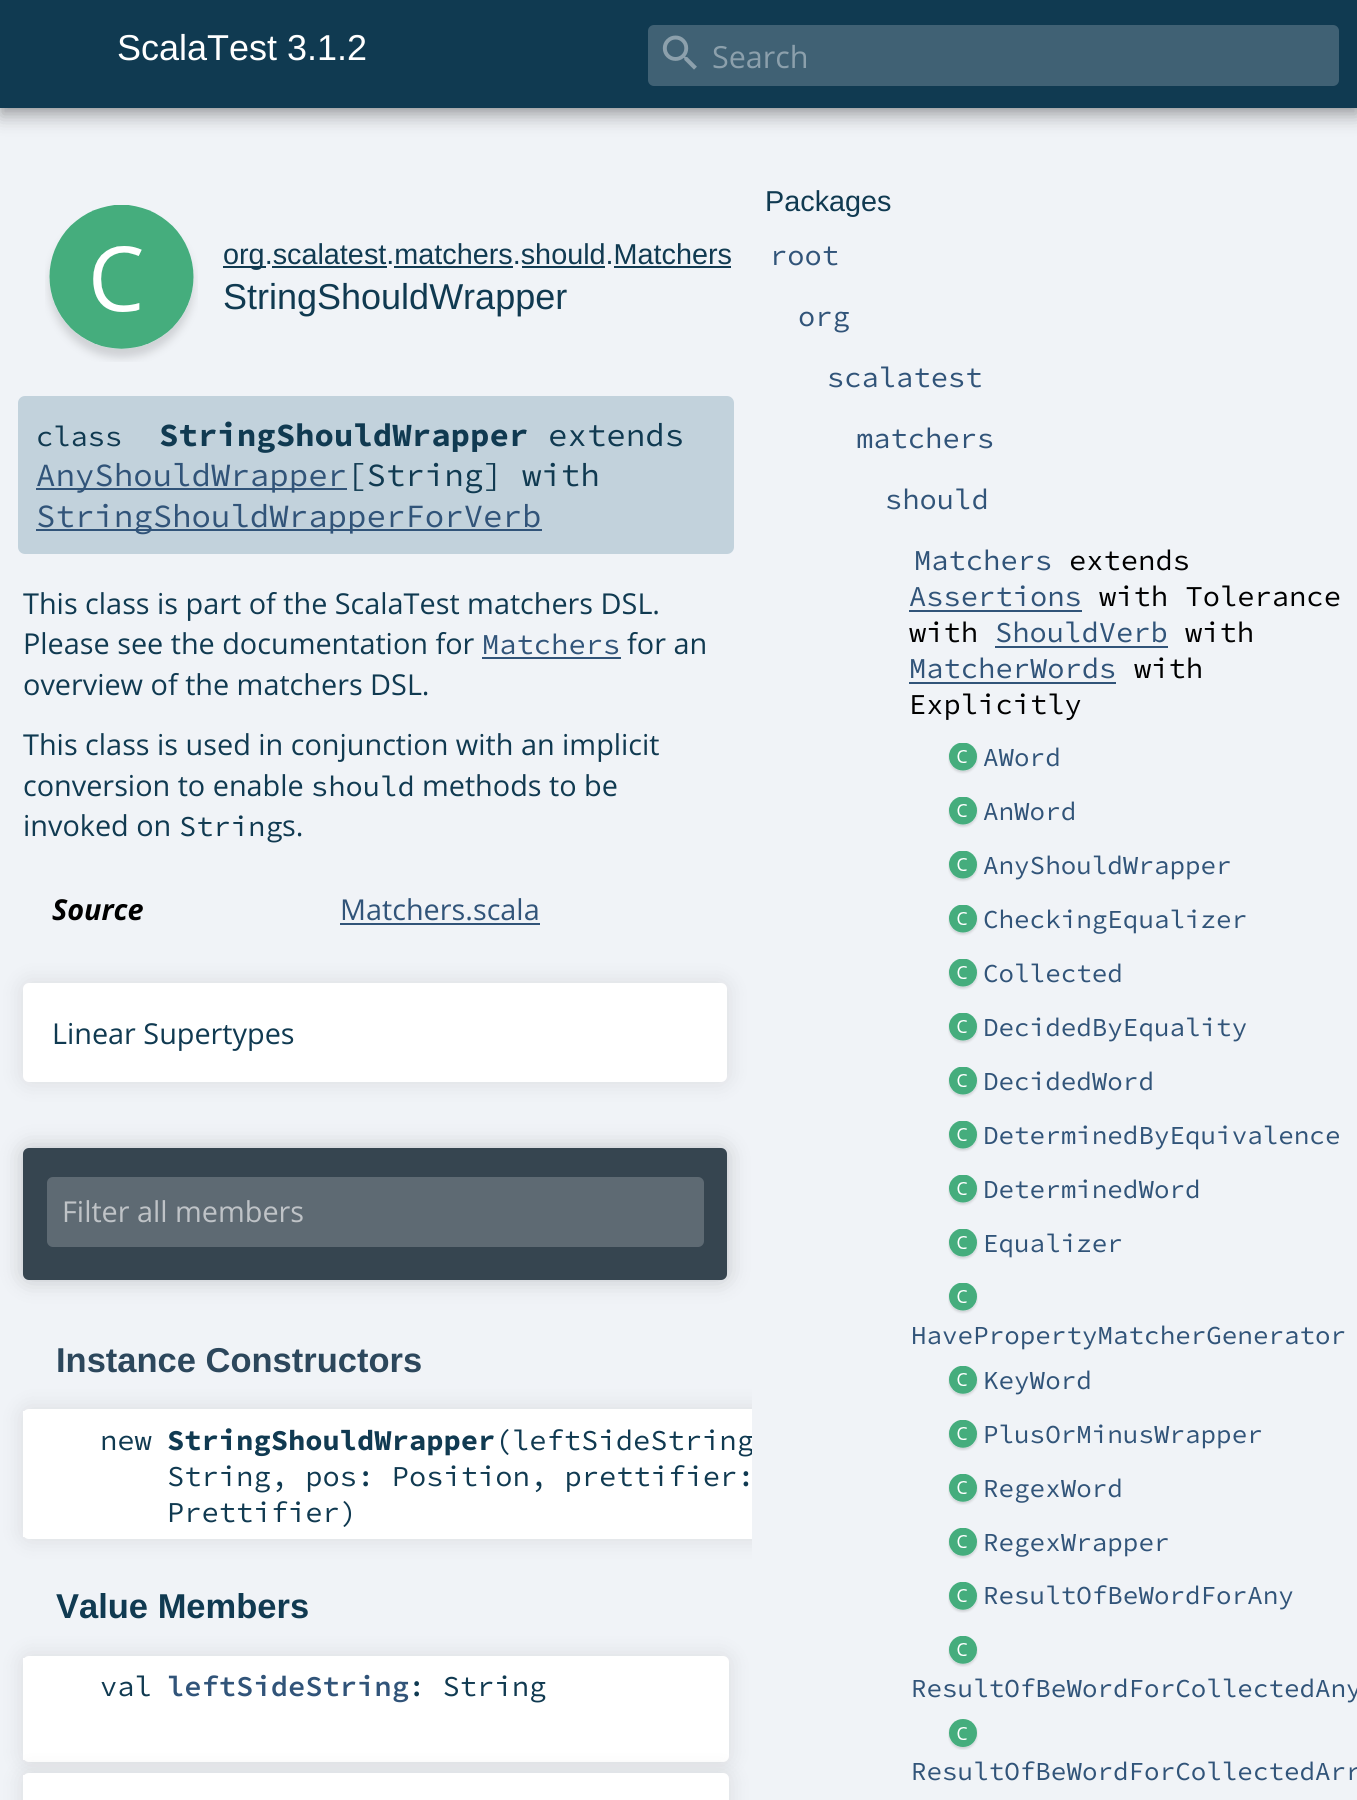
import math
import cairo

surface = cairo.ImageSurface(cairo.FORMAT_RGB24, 1357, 1800)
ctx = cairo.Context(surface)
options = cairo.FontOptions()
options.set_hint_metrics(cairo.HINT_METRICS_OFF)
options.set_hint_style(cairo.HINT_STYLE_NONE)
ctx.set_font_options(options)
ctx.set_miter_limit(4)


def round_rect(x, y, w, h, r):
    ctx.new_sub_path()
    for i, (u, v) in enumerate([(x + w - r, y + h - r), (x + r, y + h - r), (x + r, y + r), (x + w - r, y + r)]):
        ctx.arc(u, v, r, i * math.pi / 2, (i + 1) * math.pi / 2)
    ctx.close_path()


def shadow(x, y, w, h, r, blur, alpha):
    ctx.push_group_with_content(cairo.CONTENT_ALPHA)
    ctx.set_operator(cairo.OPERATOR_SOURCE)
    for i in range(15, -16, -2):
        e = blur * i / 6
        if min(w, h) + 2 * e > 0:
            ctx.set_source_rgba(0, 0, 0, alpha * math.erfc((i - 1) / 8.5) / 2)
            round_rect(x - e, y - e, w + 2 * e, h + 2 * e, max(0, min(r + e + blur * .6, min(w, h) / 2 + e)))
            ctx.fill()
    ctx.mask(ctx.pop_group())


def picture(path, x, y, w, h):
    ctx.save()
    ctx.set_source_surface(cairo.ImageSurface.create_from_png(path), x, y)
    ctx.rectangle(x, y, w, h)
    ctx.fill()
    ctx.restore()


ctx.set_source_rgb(0.941, 0.953, 0.965)
ctx.paint()
ctx.set_source_rgb(0, 0, 0)
shadow(0, 9, 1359, 108, 0, 9, 0.28)
shadow(0, 0, 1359, 108, 0, 4.5, 0.18)
ctx.set_source_rgb(0.063, 0.227, 0.318)
ctx.rectangle(0, 0, 1357, 108)
ctx.fill()
ctx.select_font_face("Liberation Sans")
ctx.set_font_size(36)
ctx.set_source_rgb(1, 1, 1)
ctx.move_to(117, 60)
ctx.show_text("ScalaTest 3.1.2")
ctx.set_source_rgb(0.251, 0.38, 0.455)
round_rect(648, 25, 691, 61, 6)
ctx.fill()
picture("img1.png", 662, 35, 35, 35)
ctx.select_font_face("Open Sans")
ctx.set_font_size(30.5)
ctx.set_source_rgb(0.549, 0.627, 0.675)
ctx.move_to(712, 68)
ctx.show_text("Search")
picture("img2.png", 45, 205, 153, 157)
ctx.set_source_rgb(0.063, 0.227, 0.318)
ctx.rectangle(223, 266, 43, 2)
ctx.fill()
ctx.select_font_face("Liberation Sans")
ctx.set_font_size(28.8)
ctx.move_to(223, 264)
ctx.show_text("org.scalatest.matchers.should.Matchers")
ctx.rectangle(272, 266, 115, 2)
ctx.fill()
ctx.rectangle(394, 266, 119, 2)
ctx.fill()
ctx.rectangle(522, 266, 83, 2)
ctx.fill()
ctx.rectangle(614, 266, 117, 2)
ctx.fill()
ctx.set_font_size(36)
ctx.move_to(223, 309)
ctx.show_text("StringShouldWrapper")
ctx.set_source_rgb(0.761, 0.824, 0.863)
round_rect(18, 396, 716, 158, 7)
ctx.fill()
ctx.select_font_face("Source Code Pro", cairo.FONT_SLANT_NORMAL, cairo.FONT_WEIGHT_BOLD)
ctx.set_font_size(32.4)
ctx.set_source_rgb(0.063, 0.227, 0.318)
ctx.move_to(159, 446)
ctx.show_text("StringShouldWrapper")
ctx.select_font_face("Source Code Pro")
ctx.move_to(548, 446)
ctx.show_text("extends")
ctx.set_source_rgb(0.192, 0.329, 0.475)
ctx.rectangle(36, 488, 311, 2)
ctx.fill()
ctx.move_to(36, 486)
ctx.show_text("AnyShouldWrapper")
ctx.set_source_rgb(0.063, 0.227, 0.318)
ctx.move_to(347, 486)
ctx.show_text("[String] with")
ctx.set_source_rgb(0.192, 0.329, 0.475)
ctx.rectangle(36, 529, 506, 2)
ctx.fill()
ctx.move_to(36, 527)
ctx.show_text("StringShouldWrapperForVerb")
ctx.set_font_size(28.8)
ctx.set_source_rgb(0.063, 0.227, 0.318)
ctx.move_to(36, 446)
ctx.show_text("class")
ctx.select_font_face("Open Sans")
ctx.move_to(23, 614)
ctx.show_text("This class is part of the ScalaTest matchers DSL.")
ctx.move_to(23, 654)
ctx.show_text("Please see the documentation for")
ctx.select_font_face("Source Code Pro")
ctx.set_source_rgb(0.192, 0.329, 0.475)
ctx.move_to(482, 654)
ctx.show_text("Matchers")
ctx.rectangle(482, 657, 139, 2)
ctx.fill()
ctx.select_font_face("Open Sans")
ctx.set_source_rgb(0.063, 0.227, 0.318)
ctx.move_to(627, 654)
ctx.show_text("for an")
ctx.move_to(23, 695)
ctx.show_text("overview of the matchers DSL.")
ctx.move_to(23, 755)
ctx.show_text("This class is used in conjunction with an implicit")
ctx.move_to(23, 796)
ctx.show_text("conversion to enable")
ctx.select_font_face("Source Code Pro")
ctx.move_to(311, 796)
ctx.show_text("should")
ctx.select_font_face("Open Sans")
ctx.move_to(422, 796)
ctx.show_text("methods to be")
ctx.move_to(23, 836)
ctx.show_text("invoked on")
ctx.select_font_face("Source Code Pro")
ctx.move_to(179, 836)
ctx.show_text("String")
ctx.select_font_face("Open Sans")
ctx.move_to(282, 836)
ctx.show_text("s.")
ctx.select_font_face("Open Sans", cairo.FONT_SLANT_ITALIC, cairo.FONT_WEIGHT_BOLD)
ctx.set_source_rgb(0, 0, 0)
ctx.move_to(52, 920)
ctx.show_text("Source")
ctx.select_font_face("Open Sans")
ctx.set_source_rgb(0.192, 0.329, 0.475)
ctx.move_to(340, 920)
ctx.show_text("Matchers.scala")
ctx.rectangle(340, 923, 200, 2)
ctx.fill()
ctx.set_source_rgb(0, 0, 0)
shadow(23, 983, 704, 99, 6, 11, 0.1)
ctx.set_source_rgb(1, 1, 1)
round_rect(23, 983, 704, 99, 6)
ctx.fill()
ctx.set_source_rgb(0.063, 0.227, 0.318)
ctx.move_to(52, 1044)
ctx.show_text("Linear Supertypes")
ctx.set_source_rgb(0, 0, 0)
shadow(23, 1148, 704, 132, 6, 11, 0.2)
ctx.set_source_rgb(0.212, 0.271, 0.314)
round_rect(23, 1148, 704, 132, 6)
ctx.fill()
ctx.set_source_rgb(0.369, 0.416, 0.451)
round_rect(47, 1177, 657, 70, 6)
ctx.fill()
ctx.set_source_rgb(0.749, 0.765, 0.78)
ctx.move_to(62, 1222)
ctx.show_text("Filter all members")
ctx.select_font_face("Liberation Sans", cairo.FONT_SLANT_NORMAL, cairo.FONT_WEIGHT_BOLD)
ctx.set_font_size(34.5)
ctx.set_source_rgb(0.173, 0.278, 0.361)
ctx.move_to(56, 1372)
ctx.show_text("Instance Constructors")
ctx.save()
ctx.rectangle(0, 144, 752, 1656)
ctx.clip()
ctx.set_source_rgb(0, 0, 0)
shadow(23, 1409, 749, 130, 6, 11, 0.1)
ctx.restore()
ctx.set_source_rgb(1, 1, 1)
ctx.new_path()
ctx.move_to(29, 1409)
ctx.line_to(752, 1409)
ctx.line_to(752, 1539)
ctx.line_to(29, 1539)
ctx.curve_to(25.5, 1539, 23, 1536.5, 23, 1533)
ctx.line_to(23, 1415)
ctx.curve_to(23, 1411.5, 25.5, 1409, 29, 1409)
ctx.close_path()
ctx.fill()
ctx.rectangle(23, 1411, 2, 126)
ctx.fill()
ctx.select_font_face("Source Code Pro")
ctx.set_font_size(28.8)
ctx.set_source_rgb(0.063, 0.227, 0.318)
ctx.move_to(100, 1450)
ctx.show_text("new")
ctx.select_font_face("Source Code Pro", cairo.FONT_SLANT_NORMAL, cairo.FONT_WEIGHT_BOLD)
ctx.move_to(167, 1450)
ctx.show_text("StringShouldWrapper")
ctx.select_font_face("Source Code Pro")
ctx.move_to(495, 1450)
ctx.show_text("(")
ctx.save()
ctx.rectangle(0, 144, 752, 1656)
ctx.clip()
ctx.move_to(512, 1450)
ctx.show_text("leftSideString")
ctx.restore()
ctx.move_to(167, 1486)
ctx.show_text("String, pos: Position, prettifier:")
ctx.move_to(167, 1522)
ctx.show_text("Prettifier)")
ctx.select_font_face("Liberation Sans", cairo.FONT_SLANT_NORMAL, cairo.FONT_WEIGHT_BOLD)
ctx.set_font_size(34.5)
ctx.move_to(56, 1618)
ctx.show_text("Value Members")
ctx.set_source_rgb(0, 0, 0)
shadow(23, 1656, 706, 106, 6, 11, 0.1)
ctx.set_source_rgb(1, 1, 1)
round_rect(23, 1656, 706, 106, 6)
ctx.fill()
ctx.rectangle(23, 1658, 2, 102)
ctx.fill()
ctx.select_font_face("Source Code Pro")
ctx.set_font_size(28.8)
ctx.set_source_rgb(0.063, 0.227, 0.318)
ctx.move_to(100, 1696)
ctx.show_text("val")
ctx.select_font_face("Source Code Pro SemiBold")
ctx.set_source_rgb(0.192, 0.329, 0.475)
ctx.move_to(167, 1696)
ctx.show_text("leftSideString")
ctx.select_font_face("Source Code Pro")
ctx.set_source_rgb(0.063, 0.227, 0.318)
ctx.move_to(408, 1696)
ctx.show_text(": String")
ctx.set_source_rgb(0, 0, 0)
shadow(23, 1773, 706, 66, 6, 11, 0.1)
ctx.set_source_rgb(1, 1, 1)
ctx.new_path()
ctx.move_to(29, 1773)
ctx.line_to(723, 1773)
ctx.curve_to(726.5, 1773, 729, 1775.5, 729, 1779)
ctx.line_to(729, 1800)
ctx.line_to(23, 1800)
ctx.line_to(23, 1779)
ctx.curve_to(23, 1775.5, 25.5, 1773, 29, 1773)
ctx.close_path()
ctx.fill()
ctx.rectangle(23, 1775, 2, 3)
ctx.fill()
ctx.select_font_face("Liberation Sans")
ctx.set_source_rgb(0.063, 0.227, 0.318)
ctx.move_to(765, 211)
ctx.show_text("Packages")
ctx.select_font_face("Source Code Pro")
ctx.set_source_rgb(0.192, 0.329, 0.475)
ctx.move_to(770, 265)
ctx.show_text("root")
ctx.move_to(798, 326)
ctx.show_text("org")
ctx.move_to(827, 387)
ctx.show_text("scalatest")
ctx.move_to(856, 448)
ctx.show_text("matchers")
ctx.move_to(885, 509)
ctx.show_text("should")
ctx.move_to(914, 570)
ctx.show_text("Matchers")
ctx.set_source_rgb(0, 0, 0)
ctx.move_to(1069, 570)
ctx.show_text("extends")
ctx.set_source_rgb(0.192, 0.329, 0.475)
ctx.move_to(909, 606)
ctx.show_text("Assertions")
ctx.rectangle(909, 610, 173, 2)
ctx.fill()
ctx.set_source_rgb(0, 0, 0)
ctx.move_to(1099, 606)
ctx.show_text("with Tolerance")
ctx.move_to(909, 642)
ctx.show_text("with")
ctx.set_source_rgb(0.192, 0.329, 0.475)
ctx.move_to(995, 642)
ctx.show_text("ShouldVerb")
ctx.rectangle(995, 646, 173, 2)
ctx.fill()
ctx.set_source_rgb(0, 0, 0)
ctx.move_to(1185, 642)
ctx.show_text("with")
ctx.set_source_rgb(0.192, 0.329, 0.475)
ctx.move_to(909, 678)
ctx.show_text("MatcherWords")
ctx.rectangle(909, 682, 207, 2)
ctx.fill()
ctx.set_source_rgb(0, 0, 0)
ctx.move_to(1134, 678)
ctx.show_text("with")
ctx.move_to(909, 714)
ctx.show_text("Explicitly")
picture("img3.png", 948, 743, 30, 31)
ctx.set_font_size(25.9)
ctx.set_source_rgb(0.192, 0.329, 0.475)
ctx.move_to(983, 766)
ctx.show_text("AWord")
picture("img4.png", 948, 797, 30, 31)
ctx.move_to(983, 820)
ctx.show_text("AnWord")
picture("img4.png", 948, 851, 30, 31)
ctx.move_to(983, 874)
ctx.show_text("AnyShouldWrapper")
picture("img4.png", 948, 905, 30, 31)
ctx.move_to(983, 928)
ctx.show_text("CheckingEqualizer")
picture("img4.png", 948, 959, 30, 31)
ctx.move_to(983, 982)
ctx.show_text("Collected")
picture("img4.png", 948, 1013, 30, 31)
ctx.move_to(983, 1036)
ctx.show_text("DecidedByEquality")
picture("img4.png", 948, 1067, 30, 31)
ctx.move_to(983, 1090)
ctx.show_text("DecidedWord")
picture("img4.png", 948, 1121, 30, 31)
ctx.move_to(983, 1144)
ctx.show_text("DeterminedByEquivalence")
picture("img4.png", 948, 1175, 30, 31)
ctx.move_to(983, 1198)
ctx.show_text("DeterminedWord")
picture("img4.png", 948, 1229, 30, 31)
ctx.move_to(983, 1252)
ctx.show_text("Equalizer")
picture("img4.png", 948, 1283, 30, 31)
ctx.move_to(911, 1344)
ctx.show_text("HavePropertyMatcherGenerator")
picture("img5.png", 948, 1366, 30, 31)
ctx.move_to(983, 1389)
ctx.show_text("KeyWord")
picture("img5.png", 948, 1420, 30, 31)
ctx.move_to(983, 1443)
ctx.show_text("PlusOrMinusWrapper")
picture("img5.png", 948, 1474, 30, 31)
ctx.move_to(983, 1497)
ctx.show_text("RegexWord")
picture("img5.png", 948, 1528, 30, 31)
ctx.move_to(983, 1551)
ctx.show_text("RegexWrapper")
picture("img5.png", 948, 1582, 30, 31)
ctx.move_to(983, 1604)
ctx.show_text("ResultOfBeWordForAny")
picture("img5.png", 948, 1636, 30, 31)
ctx.move_to(911, 1697)
ctx.show_text("ResultOfBeWordForCollectedAny")
picture("img6.png", 948, 1719, 30, 31)
ctx.move_to(911, 1780)
ctx.show_text("ResultOfBeWordForCollectedArr")
surface.write_to_png("page.png")
